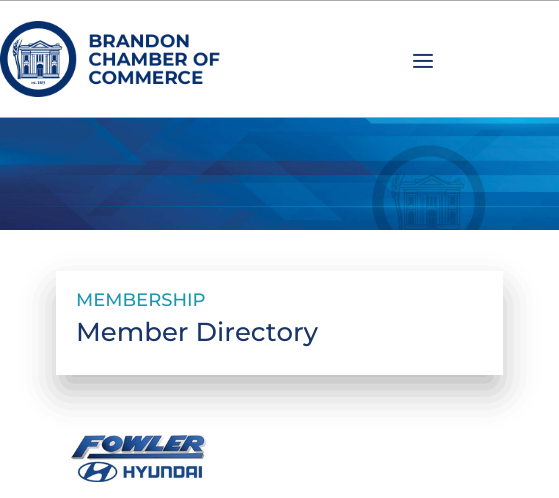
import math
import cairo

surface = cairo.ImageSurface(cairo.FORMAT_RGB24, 559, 498)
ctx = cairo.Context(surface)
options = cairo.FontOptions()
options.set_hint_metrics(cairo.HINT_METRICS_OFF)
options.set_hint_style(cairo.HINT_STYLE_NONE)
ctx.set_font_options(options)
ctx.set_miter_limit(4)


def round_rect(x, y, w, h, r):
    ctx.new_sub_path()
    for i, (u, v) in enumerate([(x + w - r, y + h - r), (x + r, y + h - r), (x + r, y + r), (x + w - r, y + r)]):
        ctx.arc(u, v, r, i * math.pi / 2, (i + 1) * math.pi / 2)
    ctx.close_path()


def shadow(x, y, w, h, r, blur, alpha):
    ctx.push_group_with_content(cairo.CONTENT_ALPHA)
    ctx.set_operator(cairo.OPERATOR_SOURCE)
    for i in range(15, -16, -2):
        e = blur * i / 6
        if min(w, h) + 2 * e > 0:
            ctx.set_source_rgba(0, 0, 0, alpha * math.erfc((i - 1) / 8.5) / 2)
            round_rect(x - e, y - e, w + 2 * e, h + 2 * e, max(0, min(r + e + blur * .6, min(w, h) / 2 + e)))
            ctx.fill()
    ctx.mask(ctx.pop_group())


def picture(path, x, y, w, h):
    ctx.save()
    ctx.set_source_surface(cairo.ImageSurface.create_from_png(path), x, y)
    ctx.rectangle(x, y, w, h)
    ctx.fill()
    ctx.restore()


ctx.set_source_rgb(1, 1, 1)
ctx.paint()
ctx.set_source_rgb(0.667, 0.667, 0.667)
ctx.rectangle(0, 0, 559, 1)
ctx.fill()
ctx.rectangle(0, 117, 559, 1)
ctx.fill()
picture("img1.png", 0, 21, 220, 76)
picture("img2.png", 413, 53, 20, 15)
picture("img3.png", 0, 118, 559, 112)
picture("img4.png", 71, 435, 135, 47)
ctx.save()
ctx.set_fill_rule(cairo.FILL_RULE_EVEN_ODD)
ctx.new_path()
ctx.move_to(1, 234)
ctx.line_to(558, 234)
ctx.line_to(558, 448)
ctx.line_to(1, 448)
ctx.close_path()
ctx.move_to(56, 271)
ctx.line_to(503, 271)
ctx.line_to(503, 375)
ctx.line_to(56, 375)
ctx.close_path()
ctx.clip()
ctx.set_source_rgb(0, 0, 0)
shadow(62, 295, 435, 92, 0, 20, 0.3)
ctx.restore()
ctx.select_font_face("Montserrat Medium")
ctx.set_font_size(18)
ctx.set_source_rgb(0.114, 0.592, 0.686)
ctx.move_to(76, 306)
ctx.show_text("MEMBERSHIP")
ctx.set_font_size(26)
ctx.set_source_rgb(0.102, 0.212, 0.408)
ctx.move_to(76, 341)
ctx.show_text("Member Directory")
surface.write_to_png("page.png")
